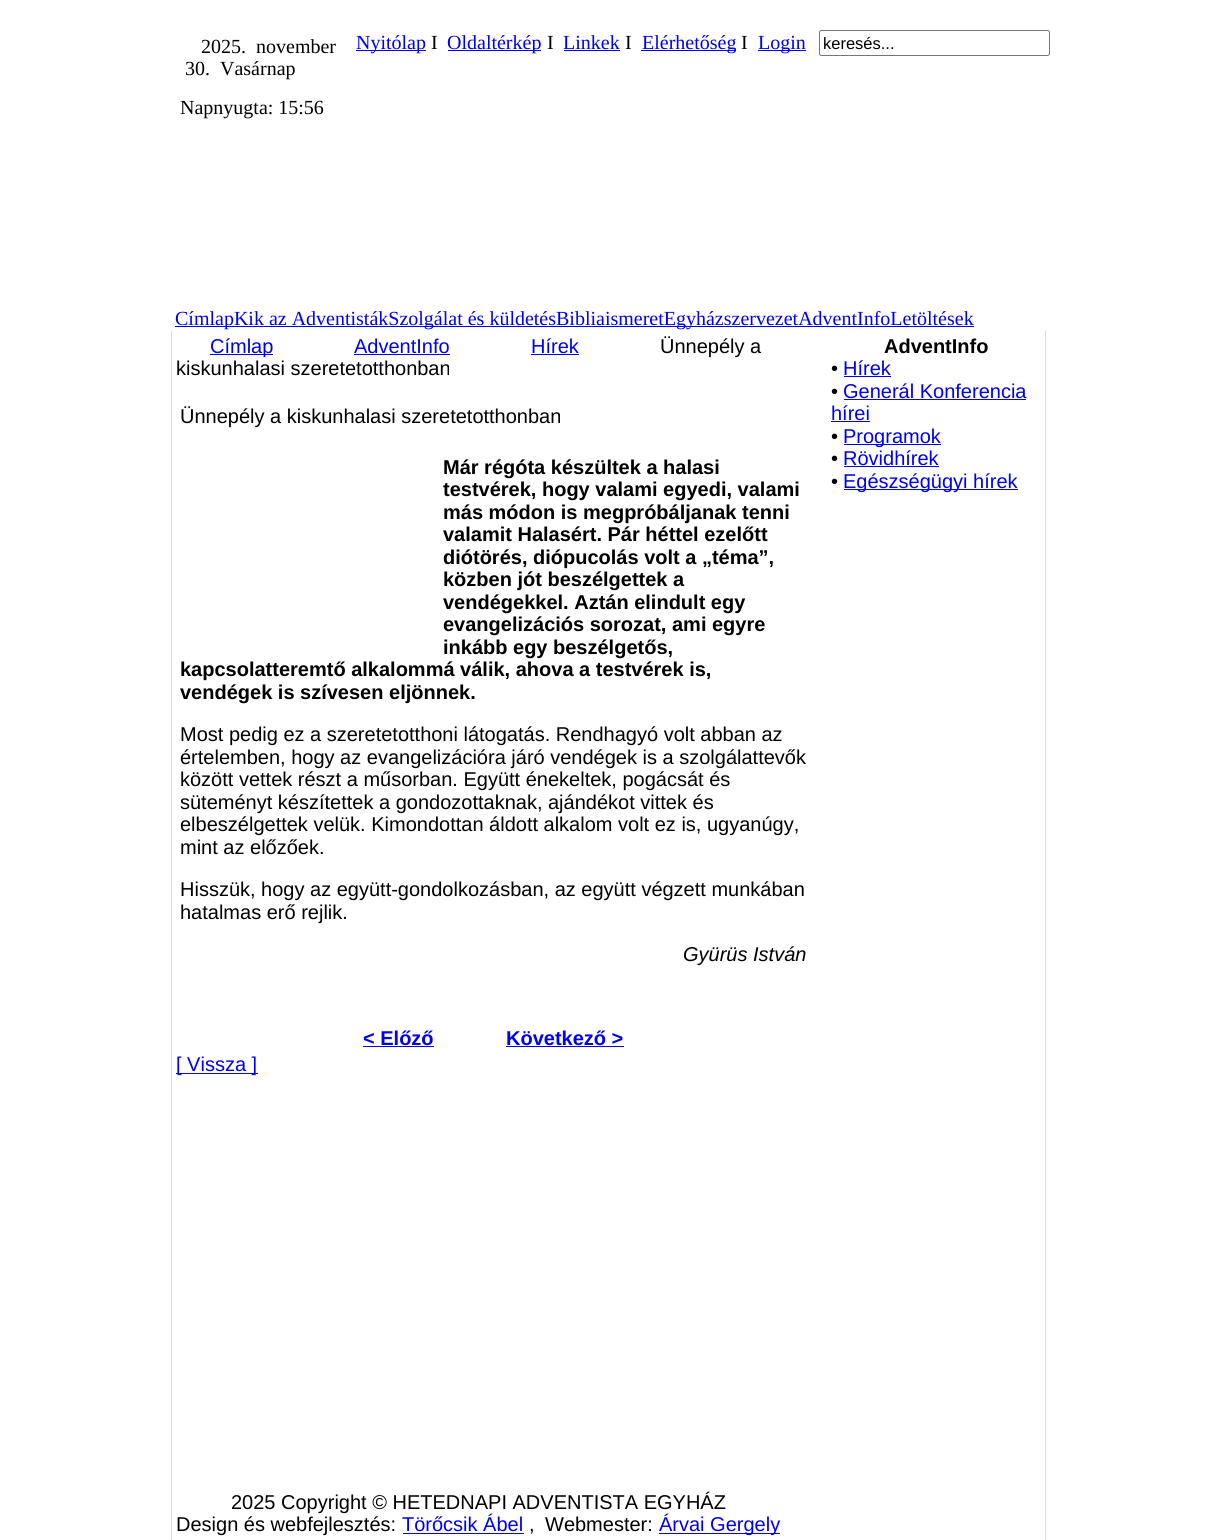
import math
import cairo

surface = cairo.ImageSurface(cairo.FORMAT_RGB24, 1215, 1540)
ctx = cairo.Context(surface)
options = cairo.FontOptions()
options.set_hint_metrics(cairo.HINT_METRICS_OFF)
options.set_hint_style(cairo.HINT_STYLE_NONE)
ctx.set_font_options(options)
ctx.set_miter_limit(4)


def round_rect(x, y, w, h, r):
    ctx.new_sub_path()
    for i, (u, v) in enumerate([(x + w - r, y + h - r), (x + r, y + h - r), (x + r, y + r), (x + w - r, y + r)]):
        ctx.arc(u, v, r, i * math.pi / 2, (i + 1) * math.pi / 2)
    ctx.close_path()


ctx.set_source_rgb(1, 1, 1)
ctx.paint()
ctx.select_font_face("Liberation Serif")
ctx.set_font_size(20)
ctx.set_source_rgb(0, 0, 0)
ctx.move_to(201, 53)
ctx.show_text("2025.  november")
ctx.move_to(185, 75)
ctx.show_text("30.  Vasárnap")
ctx.move_to(180, 114)
ctx.show_text("Napnyugta: 15:56")
ctx.set_source_rgb(0, 0, 0.933)
ctx.rectangle(356, 50, 70, 1)
ctx.fill()
ctx.move_to(356, 49)
ctx.show_text("Nyitólap")
ctx.set_source_rgb(0, 0, 0)
ctx.move_to(431, 49)
ctx.show_text("I")
ctx.set_source_rgb(0, 0, 0.933)
ctx.rectangle(448, 50, 93, 1)
ctx.fill()
ctx.move_to(447, 49)
ctx.show_text("Oldaltérkép")
ctx.set_source_rgb(0, 0, 0)
ctx.move_to(547, 49)
ctx.show_text("I")
ctx.set_source_rgb(0, 0, 0.933)
ctx.move_to(563, 49)
ctx.show_text("Linkek")
ctx.rectangle(564, 50, 56, 1)
ctx.fill()
ctx.set_source_rgb(0, 0, 0)
ctx.move_to(625, 49)
ctx.show_text("I")
ctx.set_source_rgb(0, 0, 0.933)
ctx.rectangle(641, 50, 95, 1)
ctx.fill()
ctx.move_to(642, 49)
ctx.show_text("Elérhetőség")
ctx.set_source_rgb(0, 0, 0)
ctx.move_to(741, 49)
ctx.show_text("I")
ctx.set_source_rgb(0, 0, 0.933)
ctx.rectangle(758, 50, 48, 1)
ctx.fill()
ctx.move_to(758, 49)
ctx.show_text("Login")
round_rect(819.5, 30.5, 230, 25, 2)
ctx.set_source_rgb(0.463, 0.463, 0.463)
ctx.set_line_width(1)
ctx.stroke()
ctx.select_font_face("Liberation Sans")
ctx.set_font_size(16.5)
ctx.set_source_rgb(0, 0, 0)
ctx.move_to(823, 49)
ctx.show_text("keresés...")
ctx.set_source_rgb(0, 0, 0.933)
ctx.rectangle(175, 326, 799, 1)
ctx.fill()
ctx.select_font_face("Liberation Serif")
ctx.set_font_size(20)
ctx.move_to(175, 325)
ctx.show_text("CímlapKik az AdventistákSzolgálat és küldetésBibliaismeretEgyházszervezetAdventInfoLetöltések")
ctx.set_source_rgb(0.863, 0.863, 0.863)
ctx.rectangle(1045, 331, 1, 1209)
ctx.fill()
ctx.rectangle(171, 331, 1, 1209)
ctx.fill()
ctx.set_source_rgb(0, 0, 0.933)
ctx.rectangle(210, 354, 63, 1)
ctx.fill()
ctx.select_font_face("Liberation Sans")
ctx.move_to(210, 353)
ctx.show_text("Címlap")
ctx.move_to(354, 353)
ctx.show_text("AdventInfo")
ctx.rectangle(354, 354, 96, 1)
ctx.fill()
ctx.move_to(531, 353)
ctx.show_text("Hírek")
ctx.rectangle(531, 354, 48, 1)
ctx.fill()
ctx.set_source_rgb(0, 0, 0)
ctx.move_to(660, 353)
ctx.show_text("Ünnepély a")
ctx.move_to(176, 375)
ctx.show_text("kiskunhalasi szeretetotthonban")
ctx.move_to(180, 423)
ctx.show_text("Ünnepély a kiskunhalasi szeretetotthonban")
ctx.select_font_face("Liberation Sans", cairo.FONT_SLANT_NORMAL, cairo.FONT_WEIGHT_BOLD)
ctx.move_to(443, 474)
ctx.show_text("Már régóta készültek a halasi")
ctx.move_to(443, 496)
ctx.show_text("testvérek, hogy valami egyedi, valami")
ctx.move_to(443, 519)
ctx.show_text("más módon is megpróbáljanak tenni")
ctx.move_to(443, 541)
ctx.show_text("valamit Halasért. Pár héttel ezelőtt")
ctx.move_to(443, 564)
ctx.show_text("diótörés, diópucolás volt a „téma”,")
ctx.move_to(443, 586)
ctx.show_text("közben jót beszélgettek a")
ctx.move_to(443, 609)
ctx.show_text("vendégekkel. Aztán elindult egy")
ctx.move_to(443, 631)
ctx.show_text("evangelizációs sorozat, ami egyre")
ctx.move_to(443, 654)
ctx.show_text("inkább egy beszélgetős,")
ctx.move_to(180, 676)
ctx.show_text("kapcsolatteremtő alkalommá válik, ahova a testvérek is,")
ctx.move_to(180, 699)
ctx.show_text("vendégek is szívesen eljönnek.")
ctx.select_font_face("Liberation Sans")
ctx.move_to(180, 741)
ctx.show_text("Most pedig ez a szeretetotthoni látogatás. Rendhagyó volt abban az")
ctx.move_to(180, 764)
ctx.show_text("értelemben, hogy az evangelizációra járó vendégek is a szolgálattevők")
ctx.move_to(180, 786)
ctx.show_text("között vettek részt a műsorban. Együtt énekeltek, pogácsát és")
ctx.move_to(180, 809)
ctx.show_text("süteményt készítettek a gondozottaknak, ajándékot vittek és")
ctx.move_to(180, 831)
ctx.show_text("elbeszélgettek velük. Kimondottan áldott alkalom volt ez is, ugyanúgy,")
ctx.move_to(180, 854)
ctx.show_text("mint az előzőek.")
ctx.move_to(180, 896)
ctx.show_text("Hisszük, hogy az együtt-gondolkozásban, az együtt végzett munkában")
ctx.move_to(180, 919)
ctx.show_text("hatalmas erő rejlik.")
ctx.select_font_face("Liberation Sans", cairo.FONT_SLANT_ITALIC)
ctx.move_to(683, 961)
ctx.show_text("Gyürüs István")
ctx.select_font_face("Liberation Sans", cairo.FONT_SLANT_NORMAL, cairo.FONT_WEIGHT_BOLD)
ctx.set_source_rgb(0, 0, 0.933)
ctx.move_to(363, 1045)
ctx.show_text("< Előző")
ctx.rectangle(363, 1046, 71, 1)
ctx.fill()
ctx.move_to(506, 1045)
ctx.show_text("Következő >")
ctx.rectangle(506, 1046, 118, 1)
ctx.fill()
ctx.rectangle(176, 1073, 82, 1)
ctx.fill()
ctx.select_font_face("Liberation Sans")
ctx.move_to(176, 1071)
ctx.show_text("[ Vissza ]")
ctx.select_font_face("Liberation Sans", cairo.FONT_SLANT_NORMAL, cairo.FONT_WEIGHT_BOLD)
ctx.set_source_rgb(0, 0, 0)
ctx.move_to(884, 353)
ctx.show_text("AdventInfo")
ctx.select_font_face("Liberation Sans")
ctx.move_to(831, 375)
ctx.show_text("•")
ctx.set_source_rgb(0, 0, 0.933)
ctx.move_to(843, 375)
ctx.show_text("Hírek")
ctx.rectangle(844, 376, 47, 1)
ctx.fill()
ctx.set_source_rgb(0, 0, 0)
ctx.move_to(831, 398)
ctx.show_text("•")
ctx.set_source_rgb(0, 0, 0.933)
ctx.move_to(843, 398)
ctx.show_text("Generál Konferencia")
ctx.rectangle(844, 399, 182, 1)
ctx.fill()
ctx.move_to(831, 420)
ctx.show_text("hírei")
ctx.rectangle(831, 421, 39, 1)
ctx.fill()
ctx.set_source_rgb(0, 0, 0)
ctx.move_to(831, 443)
ctx.show_text("•")
ctx.set_source_rgb(0, 0, 0.933)
ctx.rectangle(844, 444, 97, 1)
ctx.fill()
ctx.move_to(843, 443)
ctx.show_text("Programok")
ctx.set_source_rgb(0, 0, 0)
ctx.move_to(831, 465)
ctx.show_text("•")
ctx.set_source_rgb(0, 0, 0.933)
ctx.move_to(843, 465)
ctx.show_text("Rövidhírek")
ctx.rectangle(844, 466, 95, 1)
ctx.fill()
ctx.set_source_rgb(0, 0, 0)
ctx.move_to(831, 488)
ctx.show_text("•")
ctx.set_source_rgb(0, 0, 0.933)
ctx.rectangle(844, 489, 174, 1)
ctx.fill()
ctx.move_to(843, 488)
ctx.show_text("Egészségügyi hírek")
ctx.set_source_rgb(0, 0, 0)
ctx.move_to(231, 1509)
ctx.show_text("2025 Copyright © HETEDNAPI ADVENTISTA EGYHÁZ")
ctx.move_to(176, 1531)
ctx.show_text("Design és webfejlesztés:")
ctx.set_source_rgb(0, 0, 0.933)
ctx.move_to(402, 1531)
ctx.show_text("Törőcsik Ábel")
ctx.rectangle(403, 1533, 121, 1)
ctx.fill()
ctx.set_source_rgb(0, 0, 0)
ctx.move_to(529, 1531)
ctx.show_text(",")
ctx.move_to(545, 1531)
ctx.show_text("Webmester:")
ctx.set_source_rgb(0, 0, 0.933)
ctx.rectangle(659, 1533, 121, 1)
ctx.fill()
ctx.move_to(659, 1531)
ctx.show_text("Árvai Gergely")
surface.write_to_png("page.png")
